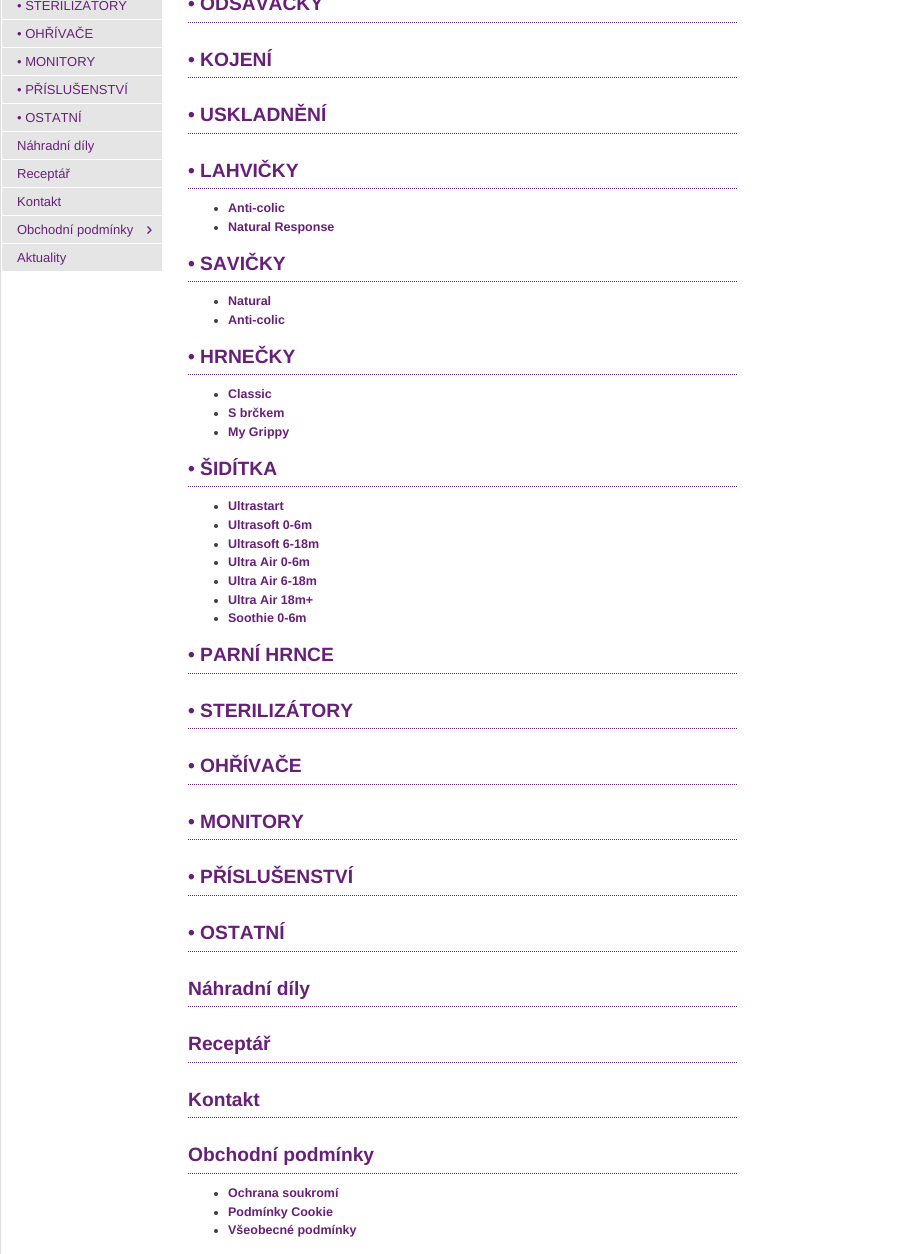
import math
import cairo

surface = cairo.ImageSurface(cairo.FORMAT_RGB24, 921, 1254)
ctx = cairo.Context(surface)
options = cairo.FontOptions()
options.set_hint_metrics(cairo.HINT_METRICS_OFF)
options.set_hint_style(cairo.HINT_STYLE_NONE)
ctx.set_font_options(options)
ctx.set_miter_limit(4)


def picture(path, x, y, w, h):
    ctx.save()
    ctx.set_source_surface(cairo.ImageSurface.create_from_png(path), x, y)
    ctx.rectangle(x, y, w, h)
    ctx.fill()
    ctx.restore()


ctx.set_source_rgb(1, 1, 1)
ctx.paint()
ctx.rectangle(0.5, -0.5, 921, 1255)
ctx.set_source_rgb(0.867, 0.867, 0.867)
ctx.set_line_width(1)
ctx.stroke()
ctx.set_source_rgb(0.898, 0.898, 0.898)
ctx.rectangle(2, 0, 160, 19)
ctx.fill()
ctx.select_font_face("Liberation Sans")
ctx.set_font_size(13)
ctx.set_source_rgb(0.404, 0.125, 0.467)
ctx.move_to(17, 10)
ctx.show_text("• STERILIZÁTORY")
ctx.set_source_rgb(0.898, 0.898, 0.898)
ctx.rectangle(2, 20, 160, 27)
ctx.fill()
ctx.set_source_rgb(0.404, 0.125, 0.467)
ctx.move_to(17, 38)
ctx.show_text("• OHŘÍVAČE")
ctx.set_source_rgb(0.898, 0.898, 0.898)
ctx.rectangle(2, 48, 160, 27)
ctx.fill()
ctx.set_source_rgb(0.404, 0.125, 0.467)
ctx.move_to(17, 66)
ctx.show_text("• MONITORY")
ctx.set_source_rgb(0.898, 0.898, 0.898)
ctx.rectangle(2, 76, 160, 27)
ctx.fill()
ctx.set_source_rgb(0.404, 0.125, 0.467)
ctx.move_to(17, 94)
ctx.show_text("• PŘÍSLUŠENSTVÍ")
ctx.set_source_rgb(0.898, 0.898, 0.898)
ctx.rectangle(2, 104, 160, 27)
ctx.fill()
ctx.set_source_rgb(0.404, 0.125, 0.467)
ctx.move_to(17, 122)
ctx.show_text("• OSTATNÍ")
ctx.set_source_rgb(0.898, 0.898, 0.898)
ctx.rectangle(2, 132, 160, 27)
ctx.fill()
ctx.set_source_rgb(0.404, 0.125, 0.467)
ctx.move_to(17, 150)
ctx.show_text("Náhradní díly")
ctx.set_source_rgb(0.898, 0.898, 0.898)
ctx.rectangle(2, 160, 160, 27)
ctx.fill()
ctx.set_source_rgb(0.404, 0.125, 0.467)
ctx.move_to(17, 178)
ctx.show_text("Receptář")
ctx.set_source_rgb(0.898, 0.898, 0.898)
ctx.rectangle(2, 188, 160, 27)
ctx.fill()
ctx.set_source_rgb(0.404, 0.125, 0.467)
ctx.move_to(17, 206)
ctx.show_text("Kontakt")
ctx.set_source_rgb(0.898, 0.898, 0.898)
ctx.rectangle(2, 216, 160, 27)
ctx.fill()
picture("img1.png", 147, 226, 5, 8)
ctx.set_source_rgb(0.404, 0.125, 0.467)
ctx.move_to(17, 234)
ctx.show_text("Obchodní podmínky")
ctx.set_source_rgb(0.898, 0.898, 0.898)
ctx.rectangle(2, 244, 160, 27)
ctx.fill()
ctx.set_source_rgb(0.404, 0.125, 0.467)
ctx.move_to(17, 262)
ctx.show_text("Aktuality")
ctx.new_path()
ctx.move_to(188, 22.5)
ctx.line_to(738, 22.5)
ctx.set_dash([1, 1])
ctx.stroke()
ctx.select_font_face("Liberation Sans", cairo.FONT_SLANT_NORMAL, cairo.FONT_WEIGHT_BOLD)
ctx.set_font_size(19.25)
ctx.move_to(188, 10)
ctx.show_text("• ODSÁVAČKY")
ctx.new_path()
ctx.move_to(188, 77.5)
ctx.line_to(738, 77.5)
ctx.stroke()
ctx.move_to(188, 66)
ctx.show_text("• KOJENÍ")
ctx.new_path()
ctx.move_to(188, 133.5)
ctx.line_to(738, 133.5)
ctx.stroke()
ctx.move_to(188, 121)
ctx.show_text("• USKLADNĚNÍ")
ctx.new_path()
ctx.move_to(188, 188.5)
ctx.line_to(738, 188.5)
ctx.stroke()
ctx.move_to(188, 177)
ctx.show_text("• LAHVIČKY")
ctx.set_source_rgb(0.251, 0.251, 0.251)
ctx.new_path()
ctx.arc(216, 209, 2, 0, 2 * math.pi)
ctx.fill()
ctx.set_font_size(12.5)
ctx.set_source_rgb(0.404, 0.125, 0.467)
ctx.move_to(228, 212)
ctx.show_text("Anti-colic")
ctx.set_source_rgb(0.251, 0.251, 0.251)
ctx.new_path()
ctx.arc(216, 228, 2, 0, 2 * math.pi)
ctx.fill()
ctx.set_source_rgb(0.404, 0.125, 0.467)
ctx.move_to(228, 231)
ctx.show_text("Natural Response")
ctx.new_path()
ctx.move_to(188, 281.5)
ctx.line_to(738, 281.5)
ctx.stroke()
ctx.set_font_size(19.25)
ctx.move_to(188, 270)
ctx.show_text("• SAVIČKY")
ctx.set_source_rgb(0.251, 0.251, 0.251)
ctx.new_path()
ctx.arc(216, 302, 2, 0, 2 * math.pi)
ctx.fill()
ctx.set_font_size(12.5)
ctx.set_source_rgb(0.404, 0.125, 0.467)
ctx.move_to(228, 305)
ctx.show_text("Natural")
ctx.set_source_rgb(0.251, 0.251, 0.251)
ctx.new_path()
ctx.arc(216, 321, 2, 0, 2 * math.pi)
ctx.fill()
ctx.set_source_rgb(0.404, 0.125, 0.467)
ctx.move_to(228, 324)
ctx.show_text("Anti-colic")
ctx.new_path()
ctx.move_to(188, 374.5)
ctx.line_to(738, 374.5)
ctx.stroke()
ctx.set_font_size(19.25)
ctx.move_to(188, 363)
ctx.show_text("• HRNEČKY")
ctx.set_source_rgb(0.251, 0.251, 0.251)
ctx.new_path()
ctx.arc(216, 395, 2, 0, 2 * math.pi)
ctx.fill()
ctx.set_font_size(12.5)
ctx.set_source_rgb(0.404, 0.125, 0.467)
ctx.move_to(228, 398)
ctx.show_text("Classic")
ctx.set_source_rgb(0.251, 0.251, 0.251)
ctx.new_path()
ctx.arc(216, 414, 2, 0, 2 * math.pi)
ctx.fill()
ctx.set_source_rgb(0.404, 0.125, 0.467)
ctx.move_to(228, 417)
ctx.show_text("S brčkem")
ctx.set_source_rgb(0.251, 0.251, 0.251)
ctx.new_path()
ctx.arc(216, 433, 2, 0, 2 * math.pi)
ctx.fill()
ctx.set_source_rgb(0.404, 0.125, 0.467)
ctx.move_to(228, 436)
ctx.show_text("My Grippy")
ctx.new_path()
ctx.move_to(188, 486.5)
ctx.line_to(738, 486.5)
ctx.stroke()
ctx.set_font_size(19.25)
ctx.move_to(188, 475)
ctx.show_text("• ŠIDÍTKA")
ctx.set_source_rgb(0.251, 0.251, 0.251)
ctx.new_path()
ctx.arc(216, 507, 2, 0, 2 * math.pi)
ctx.fill()
ctx.set_font_size(12.5)
ctx.set_source_rgb(0.404, 0.125, 0.467)
ctx.move_to(228, 510)
ctx.show_text("Ultrastart")
ctx.set_source_rgb(0.251, 0.251, 0.251)
ctx.new_path()
ctx.arc(216, 526, 2, 0, 2 * math.pi)
ctx.fill()
ctx.set_source_rgb(0.404, 0.125, 0.467)
ctx.move_to(228, 529)
ctx.show_text("Ultrasoft 0-6m")
ctx.set_source_rgb(0.251, 0.251, 0.251)
ctx.new_path()
ctx.arc(216, 545, 2, 0, 2 * math.pi)
ctx.fill()
ctx.set_source_rgb(0.404, 0.125, 0.467)
ctx.move_to(228, 548)
ctx.show_text("Ultrasoft 6-18m")
ctx.set_source_rgb(0.251, 0.251, 0.251)
ctx.new_path()
ctx.arc(216, 563, 2, 0, 2 * math.pi)
ctx.fill()
ctx.set_source_rgb(0.404, 0.125, 0.467)
ctx.move_to(228, 566)
ctx.show_text("Ultra Air 0-6m")
ctx.set_source_rgb(0.251, 0.251, 0.251)
ctx.new_path()
ctx.arc(216, 582, 2, 0, 2 * math.pi)
ctx.fill()
ctx.set_source_rgb(0.404, 0.125, 0.467)
ctx.move_to(228, 585)
ctx.show_text("Ultra Air 6-18m")
ctx.set_source_rgb(0.251, 0.251, 0.251)
ctx.new_path()
ctx.arc(216, 601, 2, 0, 2 * math.pi)
ctx.fill()
ctx.set_source_rgb(0.404, 0.125, 0.467)
ctx.move_to(228, 604)
ctx.show_text("Ultra Air 18m+")
ctx.set_source_rgb(0.251, 0.251, 0.251)
ctx.new_path()
ctx.arc(216, 619, 2, 0, 2 * math.pi)
ctx.fill()
ctx.set_source_rgb(0.404, 0.125, 0.467)
ctx.move_to(228, 622)
ctx.show_text("Soothie 0-6m")
ctx.new_path()
ctx.move_to(188, 673.5)
ctx.line_to(738, 673.5)
ctx.stroke()
ctx.set_font_size(19.25)
ctx.move_to(188, 661)
ctx.show_text("• PARNÍ HRNCE")
ctx.new_path()
ctx.move_to(188, 728.5)
ctx.line_to(738, 728.5)
ctx.stroke()
ctx.move_to(188, 717)
ctx.show_text("• STERILIZÁTORY")
ctx.new_path()
ctx.move_to(188, 784.5)
ctx.line_to(738, 784.5)
ctx.stroke()
ctx.move_to(188, 772)
ctx.show_text("• OHŘÍVAČE")
ctx.new_path()
ctx.move_to(188, 839.5)
ctx.line_to(738, 839.5)
ctx.stroke()
ctx.move_to(188, 828)
ctx.show_text("• MONITORY")
ctx.new_path()
ctx.move_to(188, 895.5)
ctx.line_to(738, 895.5)
ctx.stroke()
ctx.move_to(188, 883)
ctx.show_text("• PŘÍSLUŠENSTVÍ")
ctx.new_path()
ctx.move_to(188, 951.5)
ctx.line_to(738, 951.5)
ctx.stroke()
ctx.move_to(188, 939)
ctx.show_text("• OSTATNÍ")
ctx.new_path()
ctx.move_to(188, 1006.5)
ctx.line_to(738, 1006.5)
ctx.stroke()
ctx.move_to(188, 995)
ctx.show_text("Náhradní díly")
ctx.new_path()
ctx.move_to(188, 1062.5)
ctx.line_to(738, 1062.5)
ctx.stroke()
ctx.move_to(188, 1050)
ctx.show_text("Receptář")
ctx.new_path()
ctx.move_to(188, 1117.5)
ctx.line_to(738, 1117.5)
ctx.stroke()
ctx.move_to(188, 1106)
ctx.show_text("Kontakt")
ctx.new_path()
ctx.move_to(188, 1173.5)
ctx.line_to(738, 1173.5)
ctx.stroke()
ctx.move_to(188, 1161)
ctx.show_text("Obchodní podmínky")
ctx.set_source_rgb(0.251, 0.251, 0.251)
ctx.new_path()
ctx.arc(216, 1194, 2, 0, 2 * math.pi)
ctx.fill()
ctx.set_font_size(12.5)
ctx.set_source_rgb(0.404, 0.125, 0.467)
ctx.move_to(228, 1197)
ctx.show_text("Ochrana soukromí")
ctx.set_source_rgb(0.251, 0.251, 0.251)
ctx.new_path()
ctx.arc(216, 1213, 2, 0, 2 * math.pi)
ctx.fill()
ctx.set_source_rgb(0.404, 0.125, 0.467)
ctx.move_to(228, 1216)
ctx.show_text("Podmínky Cookie")
ctx.set_source_rgb(0.251, 0.251, 0.251)
ctx.new_path()
ctx.arc(216, 1231, 2, 0, 2 * math.pi)
ctx.fill()
ctx.set_source_rgb(0.404, 0.125, 0.467)
ctx.move_to(228, 1234)
ctx.show_text("Všeobecné podmínky")
surface.write_to_png("page.png")
